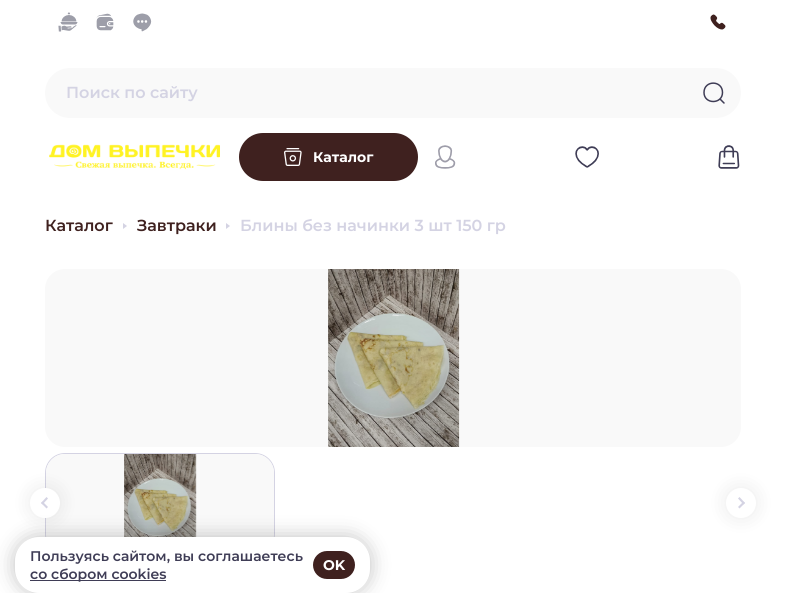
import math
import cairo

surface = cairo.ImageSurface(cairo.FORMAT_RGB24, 786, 593)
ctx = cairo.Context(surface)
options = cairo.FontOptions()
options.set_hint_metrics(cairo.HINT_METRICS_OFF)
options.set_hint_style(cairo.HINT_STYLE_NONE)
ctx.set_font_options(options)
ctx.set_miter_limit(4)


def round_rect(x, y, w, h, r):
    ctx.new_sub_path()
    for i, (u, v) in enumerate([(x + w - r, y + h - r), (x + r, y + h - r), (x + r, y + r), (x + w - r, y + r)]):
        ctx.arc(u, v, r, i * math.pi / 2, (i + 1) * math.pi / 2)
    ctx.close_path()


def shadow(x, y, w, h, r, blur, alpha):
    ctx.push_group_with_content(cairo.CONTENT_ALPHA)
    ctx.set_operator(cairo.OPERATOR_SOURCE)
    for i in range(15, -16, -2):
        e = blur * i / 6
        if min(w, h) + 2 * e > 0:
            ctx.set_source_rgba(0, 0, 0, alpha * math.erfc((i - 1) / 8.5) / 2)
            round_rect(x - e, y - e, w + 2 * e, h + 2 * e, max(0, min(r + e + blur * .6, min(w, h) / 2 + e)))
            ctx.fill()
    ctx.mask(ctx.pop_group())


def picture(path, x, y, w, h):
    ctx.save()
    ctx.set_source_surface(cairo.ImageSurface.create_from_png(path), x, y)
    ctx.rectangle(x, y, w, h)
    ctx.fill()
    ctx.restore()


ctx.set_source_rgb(1, 1, 1)
ctx.paint()
picture("img1.png", 58, 12, 20, 20)
picture("img2.png", 96, 13, 18, 18)
picture("img3.png", 133, 13, 19, 19)
picture("img4.png", 710, 14, 16, 16)
ctx.set_source_rgb(0.973, 0.973, 0.973)
round_rect(45, 68, 696, 50, 25)
ctx.fill()
ctx.select_font_face("Montserrat SemiBold")
ctx.set_font_size(16)
ctx.set_source_rgb(0.831, 0.827, 0.89)
ctx.move_to(66, 98)
ctx.show_text("Поиск по сайту")
ctx.new_path()
ctx.move_to(720, 99)
ctx.line_to(724, 103)
ctx.move_to(722.5, 92.5)
ctx.curve_to(722.5, 104.5, 704, 104.5, 704, 92.5)
ctx.curve_to(704, 80, 722.5, 80, 722.5, 92.5)
ctx.close_path()
ctx.set_source_rgb(0.247, 0.239, 0.337)
ctx.set_line_width(1.5)
ctx.set_line_cap(cairo.LINE_CAP_ROUND)
ctx.set_line_join(cairo.LINE_JOIN_ROUND)
ctx.stroke()
picture("img5.png", 49, 144, 171, 26)
ctx.set_source_rgb(0.247, 0.129, 0.122)
round_rect(239, 133, 179, 48, 24)
ctx.fill()
picture("img6.png", 284, 148, 18, 18)
ctx.select_font_face("Montserrat", cairo.FONT_SLANT_NORMAL, cairo.FONT_WEIGHT_BOLD)
ctx.set_font_size(14)
ctx.set_source_rgb(1, 1, 1)
ctx.move_to(313, 162)
ctx.show_text("Каталог")
picture("img7.png", 435, 145, 21, 24)
picture("img8.png", 575, 146, 24, 22)
picture("img9.png", 718, 145, 22, 24)
ctx.select_font_face("Montserrat SemiBold")
ctx.set_font_size(16)
ctx.set_source_rgb(0.247, 0.129, 0.122)
ctx.move_to(45, 231)
ctx.show_text("Каталог")
ctx.set_source_rgb(0.831, 0.827, 0.89)
ctx.new_path()
ctx.move_to(123, 229)
ctx.line_to(123, 223)
ctx.line_to(127, 226)
ctx.close_path()
ctx.fill()
ctx.set_source_rgb(0.247, 0.129, 0.122)
ctx.move_to(137, 231)
ctx.show_text("Завтраки")
ctx.set_source_rgb(0.831, 0.827, 0.89)
ctx.new_path()
ctx.move_to(226, 229)
ctx.line_to(226, 223)
ctx.line_to(230, 226)
ctx.close_path()
ctx.fill()
ctx.move_to(240, 231)
ctx.show_text("Блины без начинки 3 шт 150 гр")
ctx.set_source_rgb(0.973, 0.973, 0.973)
round_rect(45, 269, 696, 178, 20)
ctx.fill()
picture("img10.png", 328, 269, 132, 178)
round_rect(45.5, 453.5, 229, 99, 19.5)
ctx.set_source_rgb(0.831, 0.827, 0.89)
ctx.set_line_width(1)
ctx.set_line_cap(cairo.LINE_CAP_BUTT)
ctx.set_line_join(cairo.LINE_JOIN_MITER)
ctx.stroke()
ctx.set_source_rgb(0.973, 0.973, 0.973)
round_rect(46, 454, 228, 98, 19)
ctx.fill()
picture("img11.png", 124, 454, 73, 83)
ctx.set_source_rgb(0, 0, 0)
shadow(30, 488, 30, 30, 15, 10, 0.08)
ctx.set_source_rgb(1, 1, 1)
ctx.arc(45, 503, 15, 0, 2 * math.pi)
ctx.fill()
ctx.set_source_rgb(0.831, 0.827, 0.89)
ctx.new_path()
ctx.move_to(46.5, 508.5)
ctx.line_to(41, 503)
ctx.line_to(42.5, 501.5)
ctx.line_to(48, 507)
ctx.close_path()
ctx.fill()
ctx.new_path()
ctx.move_to(42.5, 504.5)
ctx.line_to(41, 503)
ctx.line_to(46.5, 497)
ctx.line_to(48, 498.5)
ctx.close_path()
ctx.fill()
ctx.set_source_rgb(0, 0, 0)
shadow(726, 488, 30, 30, 15, 10, 0.08)
ctx.set_source_rgb(1, 1, 1)
ctx.arc(741, 503, 15, 0, 2 * math.pi)
ctx.fill()
ctx.set_source_rgb(0.831, 0.827, 0.89)
ctx.new_path()
ctx.move_to(739.5, 497)
ctx.line_to(745, 503)
ctx.line_to(743.5, 504.5)
ctx.line_to(738, 498.5)
ctx.close_path()
ctx.fill()
ctx.new_path()
ctx.move_to(743.5, 501.5)
ctx.line_to(745, 503)
ctx.line_to(739.5, 508.5)
ctx.line_to(738, 507)
ctx.close_path()
ctx.fill()
ctx.set_source_rgb(0, 0, 0)
shadow(15, 537, 355, 56, 24, 10, 0.25)
ctx.set_source_rgb(1, 1, 1)
round_rect(15, 537, 355, 56, 24)
ctx.fill()
ctx.set_font_size(14)
ctx.set_source_rgb(0.247, 0.239, 0.337)
ctx.move_to(30, 561)
ctx.show_text("Пользуясь сайтом, вы соглашаетесь")
ctx.rectangle(30, 580, 136, 1)
ctx.fill()
ctx.move_to(30, 579)
ctx.show_text("со сбором cookies")
ctx.set_source_rgb(0.247, 0.129, 0.122)
round_rect(313, 551, 42, 28, 14)
ctx.fill()
ctx.select_font_face("Montserrat", cairo.FONT_SLANT_NORMAL, cairo.FONT_WEIGHT_BOLD)
ctx.set_source_rgb(1, 1, 1)
ctx.move_to(323, 570)
ctx.show_text("OK")
surface.write_to_png("page.png")
